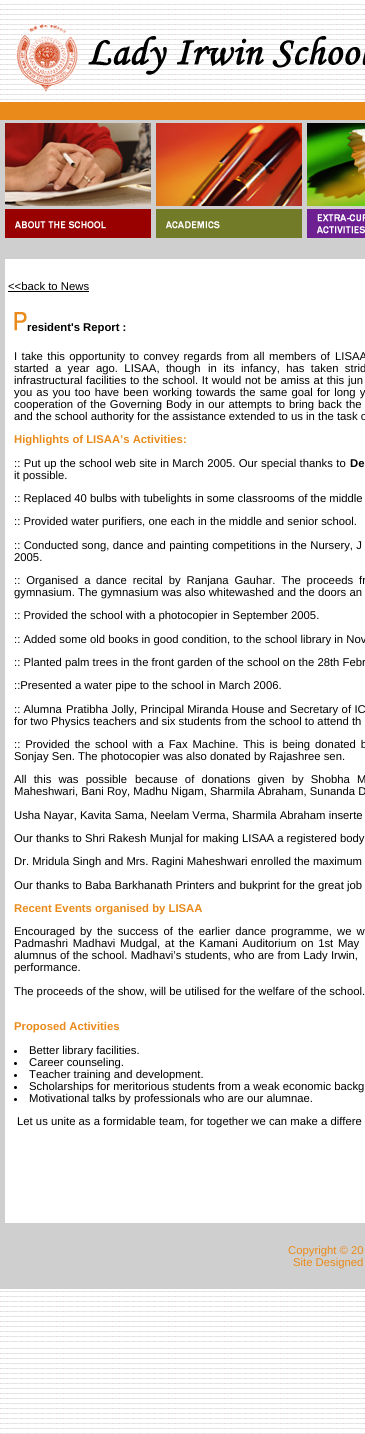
import math
import cairo

surface = cairo.ImageSurface(cairo.FORMAT_RGB24, 365, 1434)
ctx = cairo.Context(surface)
options = cairo.FontOptions()
options.set_hint_metrics(cairo.HINT_METRICS_OFF)
options.set_hint_style(cairo.HINT_STYLE_NONE)
ctx.set_font_options(options)
ctx.set_miter_limit(4)


def spaced_text(x, y, s, letter, word):
    ctx.move_to(x, y)
    for ch in s:
        ctx.show_text(ch)
        ctx.rel_move_to(letter + word * (ch == ' '), 0)


def picture(path, x, y, w, h):
    ctx.save()
    ctx.set_source_surface(cairo.ImageSurface.create_from_png(path), x, y)
    ctx.rectangle(x, y, w, h)
    ctx.fill()
    ctx.restore()


ctx.set_source_rgb(1, 1, 1)
ctx.paint()
picture("img1.png", 0, 4, 365, 1430)
picture("img2.png", 16, 24, 62, 68)
picture("img3.png", 88, 36, 277, 39)
ctx.set_source_rgb(0.914, 0.541, 0.102)
ctx.rectangle(0, 102, 365, 18)
ctx.fill()
ctx.set_source_rgb(0.812, 0.812, 0.812)
ctx.rectangle(0, 120, 365, 3)
ctx.fill()
ctx.rectangle(0, 123, 5, 83)
ctx.fill()
picture("img4.png", 5, 123, 146, 83)
ctx.rectangle(151, 123, 5, 83)
ctx.fill()
picture("img5.png", 156, 123, 146, 83)
ctx.rectangle(302, 123, 5, 83)
ctx.fill()
picture("img6.png", 307, 123, 58, 83)
ctx.rectangle(0, 206, 365, 3)
ctx.fill()
ctx.rectangle(0, 209, 5, 29)
ctx.fill()
picture("img7.png", 5, 209, 146, 29)
ctx.rectangle(151, 209, 5, 29)
ctx.fill()
picture("img8.png", 156, 209, 146, 29)
ctx.rectangle(302, 209, 5, 29)
ctx.fill()
picture("img9.png", 307, 209, 58, 29)
ctx.rectangle(0, 238, 365, 21)
ctx.fill()
ctx.rectangle(0, 259, 5, 964)
ctx.fill()
ctx.set_source_rgb(1, 1, 1)
ctx.rectangle(5, 263, 360, 957)
ctx.fill()
ctx.select_font_face("Liberation Sans")
ctx.set_font_size(11.3)
ctx.set_source_rgb(0, 0, 0)
ctx.move_to(8, 290)
ctx.show_text("<<back to News")
ctx.rectangle(8, 291, 81, 1)
ctx.fill()
picture("img10.png", 14, 312, 13, 19)
ctx.select_font_face("Liberation Sans", cairo.FONT_SLANT_NORMAL, cairo.FONT_WEIGHT_BOLD)
ctx.move_to(27, 331)
ctx.show_text("resident's Report :")
ctx.select_font_face("Liberation Sans")
spaced_text(14, 360, "I take this opportunity to convey regards from all members of", 0, 1.25)
spaced_text(335, 360, "LISAA", 0, 1.25)
spaced_text(14, 372, "started a year ago. LISAA, though", 0, 3.25)
spaced_text(208, 372, "in its infancy, has taken strid", 0, 3.25)
spaced_text(14, 384, "infrastructural facilities to the school. It would not be amiss at this", 0, 0.5)
spaced_text(348, 384, "jun", 0, 0.5)
spaced_text(14, 396, "you as you too have been", 0, 1)
spaced_text(153, 396, "working towards the same goal for long y", 0, 1)
spaced_text(14, 408, "cooperation of the Governing Body in our attempts to bring back the", 0, 0.75)
ctx.move_to(14, 420)
ctx.show_text("and the school authority for the assistance extended to us in the task o")
ctx.select_font_face("Liberation Sans", cairo.FONT_SLANT_NORMAL, cairo.FONT_WEIGHT_BOLD)
ctx.set_source_rgb(0.914, 0.541, 0.102)
ctx.move_to(14, 443)
ctx.show_text("Highlights of LISAA’s Activities:")
ctx.select_font_face("Liberation Sans")
ctx.set_source_rgb(0, 0, 0)
spaced_text(14, 467, ":: Put up the", 0, 0.25)
spaced_text(79, 467, "school web site in March 2005. Our special thanks to", 0, 0.25)
ctx.select_font_face("Liberation Sans", cairo.FONT_SLANT_NORMAL, cairo.FONT_WEIGHT_BOLD)
ctx.move_to(350, 467)
ctx.show_text("De")
ctx.select_font_face("Liberation Sans")
ctx.move_to(14, 479)
ctx.show_text("it possible.")
ctx.move_to(14, 502)
ctx.show_text(":: Replaced 40 bulbs with tubelights in some classrooms of the middle")
ctx.move_to(14, 525)
ctx.show_text(":: Provided water purifiers, one each in the middle and senior school.")
spaced_text(14, 549, ":: Conducted song, dance and painting competitions in the Nursery, J", 0, 0.25)
ctx.move_to(14, 561)
ctx.show_text("2005.")
spaced_text(14, 584, ":: Organised a", 0, 2.75)
spaced_text(96, 584, "dance recital by Ranjana Gauhar. The proceeds fr", 0, 2.75)
ctx.move_to(14, 596)
ctx.show_text("gymnasium. The gymnasium was also whitewashed and the doors an")
ctx.move_to(14, 619)
ctx.show_text(":: Provided the school with a photocopier in September 2005.")
ctx.move_to(14, 643)
ctx.show_text(":: Added some old books in good condition, to the school library in Nov")
ctx.move_to(14, 666)
ctx.show_text(":: Planted palm trees in the front garden of the school on the 28th Febr")
ctx.move_to(14, 689)
ctx.show_text("::Presented a water pipe to the school in March 2006.")
ctx.move_to(14, 713)
ctx.show_text(":: Alumna")
spaced_text(66, 713, "Pratibha Jolly, Principal Miranda House and Secretary of IC", 0, 0.25)
ctx.move_to(14, 725)
ctx.show_text("for two Physics teachers and six students from the school to attend th")
spaced_text(14, 748, ":: Provided the", 0, 1.75)
spaced_text(95, 748, "school with a Fax Machine. This is being donated b", 0, 1.75)
ctx.move_to(14, 760)
ctx.show_text("Sonjay Sen. The photocopier was also donated by Rajashree sen.")
spaced_text(14, 783, "All this was possible", 0, 4)
spaced_text(135, 783, "because of donations given by Shobha M", 0, 4)
ctx.move_to(14, 795)
ctx.show_text("Maheshwari, Bani Roy, Madhu Nigam, Sharmila Abraham, Sunanda D")
ctx.move_to(14, 819)
ctx.show_text("Usha Nayar, Kavita Sama, Neelam Verma, Sharmila Abraham inserte")
ctx.move_to(14, 842)
ctx.show_text("Our thanks to Shri Rakesh Munjal for making LISAA a registered body")
ctx.move_to(14, 865)
ctx.show_text("Dr. Mridula Singh and Mrs. Ragini Maheshwari enrolled the maximum")
ctx.move_to(14, 889)
ctx.show_text("Our thanks to Baba Barkhanath Printers and bukprint for the great job")
ctx.select_font_face("Liberation Sans", cairo.FONT_SLANT_NORMAL, cairo.FONT_WEIGHT_BOLD)
ctx.set_source_rgb(0.914, 0.541, 0.102)
ctx.move_to(14, 912)
ctx.show_text("Recent Events organised by LISAA")
ctx.select_font_face("Liberation Sans")
ctx.set_source_rgb(0, 0, 0)
spaced_text(14, 935, "Encouraged by the success of the earlier dance programme, we w", 0, 1.9)
spaced_text(14, 947, "Padmashri Madhavi Mudgal, at", 0, 1.5)
spaced_text(179, 947, "the Kamani Auditorium on 1st May", 0, 1.5)
spaced_text(14, 959, "alumnus of the school. Madhavi’s students, who are from Lady Irwin,", 0, 0.1)
ctx.move_to(14, 971)
ctx.show_text("performance.")
ctx.move_to(14, 995)
ctx.show_text("The proceeds of the show, will be utilised for the welfare of the school.")
ctx.select_font_face("Liberation Sans", cairo.FONT_SLANT_NORMAL, cairo.FONT_WEIGHT_BOLD)
ctx.set_source_rgb(0.914, 0.541, 0.102)
ctx.move_to(14, 1030)
ctx.show_text("Proposed Activities")
ctx.set_source_rgb(0, 0, 0)
ctx.new_path()
ctx.arc(15.5, 1051.5, 1.5, 0, 2 * math.pi)
ctx.fill()
ctx.select_font_face("Liberation Sans")
ctx.move_to(29, 1054)
ctx.show_text("Better library facilities.")
ctx.new_path()
ctx.arc(15.5, 1063.5, 1.5, 0, 2 * math.pi)
ctx.fill()
ctx.move_to(29, 1066)
ctx.show_text("Career counseling.")
ctx.new_path()
ctx.arc(15.5, 1075.5, 1.5, 0, 2 * math.pi)
ctx.fill()
ctx.move_to(29, 1078)
ctx.show_text("Teacher training and development.")
ctx.new_path()
ctx.arc(15.5, 1087.5, 1.5, 0, 2 * math.pi)
ctx.fill()
ctx.move_to(29, 1090)
ctx.show_text("Scholarships for meritorious students from a weak economic backg")
ctx.new_path()
ctx.arc(15.5, 1099.5, 1.5, 0, 2 * math.pi)
ctx.fill()
ctx.move_to(29, 1102)
ctx.show_text("Motivational talks by professionals who are our alumnae.")
ctx.move_to(17, 1125)
ctx.show_text("Let us unite as a formidable team, for together we can make a differe")
ctx.set_source_rgb(0.812, 0.812, 0.812)
ctx.rectangle(0, 1223, 365, 66)
ctx.fill()
ctx.set_source_rgb(0.914, 0.541, 0.102)
ctx.move_to(288, 1254)
ctx.show_text("Copyright © 20")
ctx.move_to(293, 1266)
ctx.show_text("Site Designed")
surface.write_to_png("page.png")
